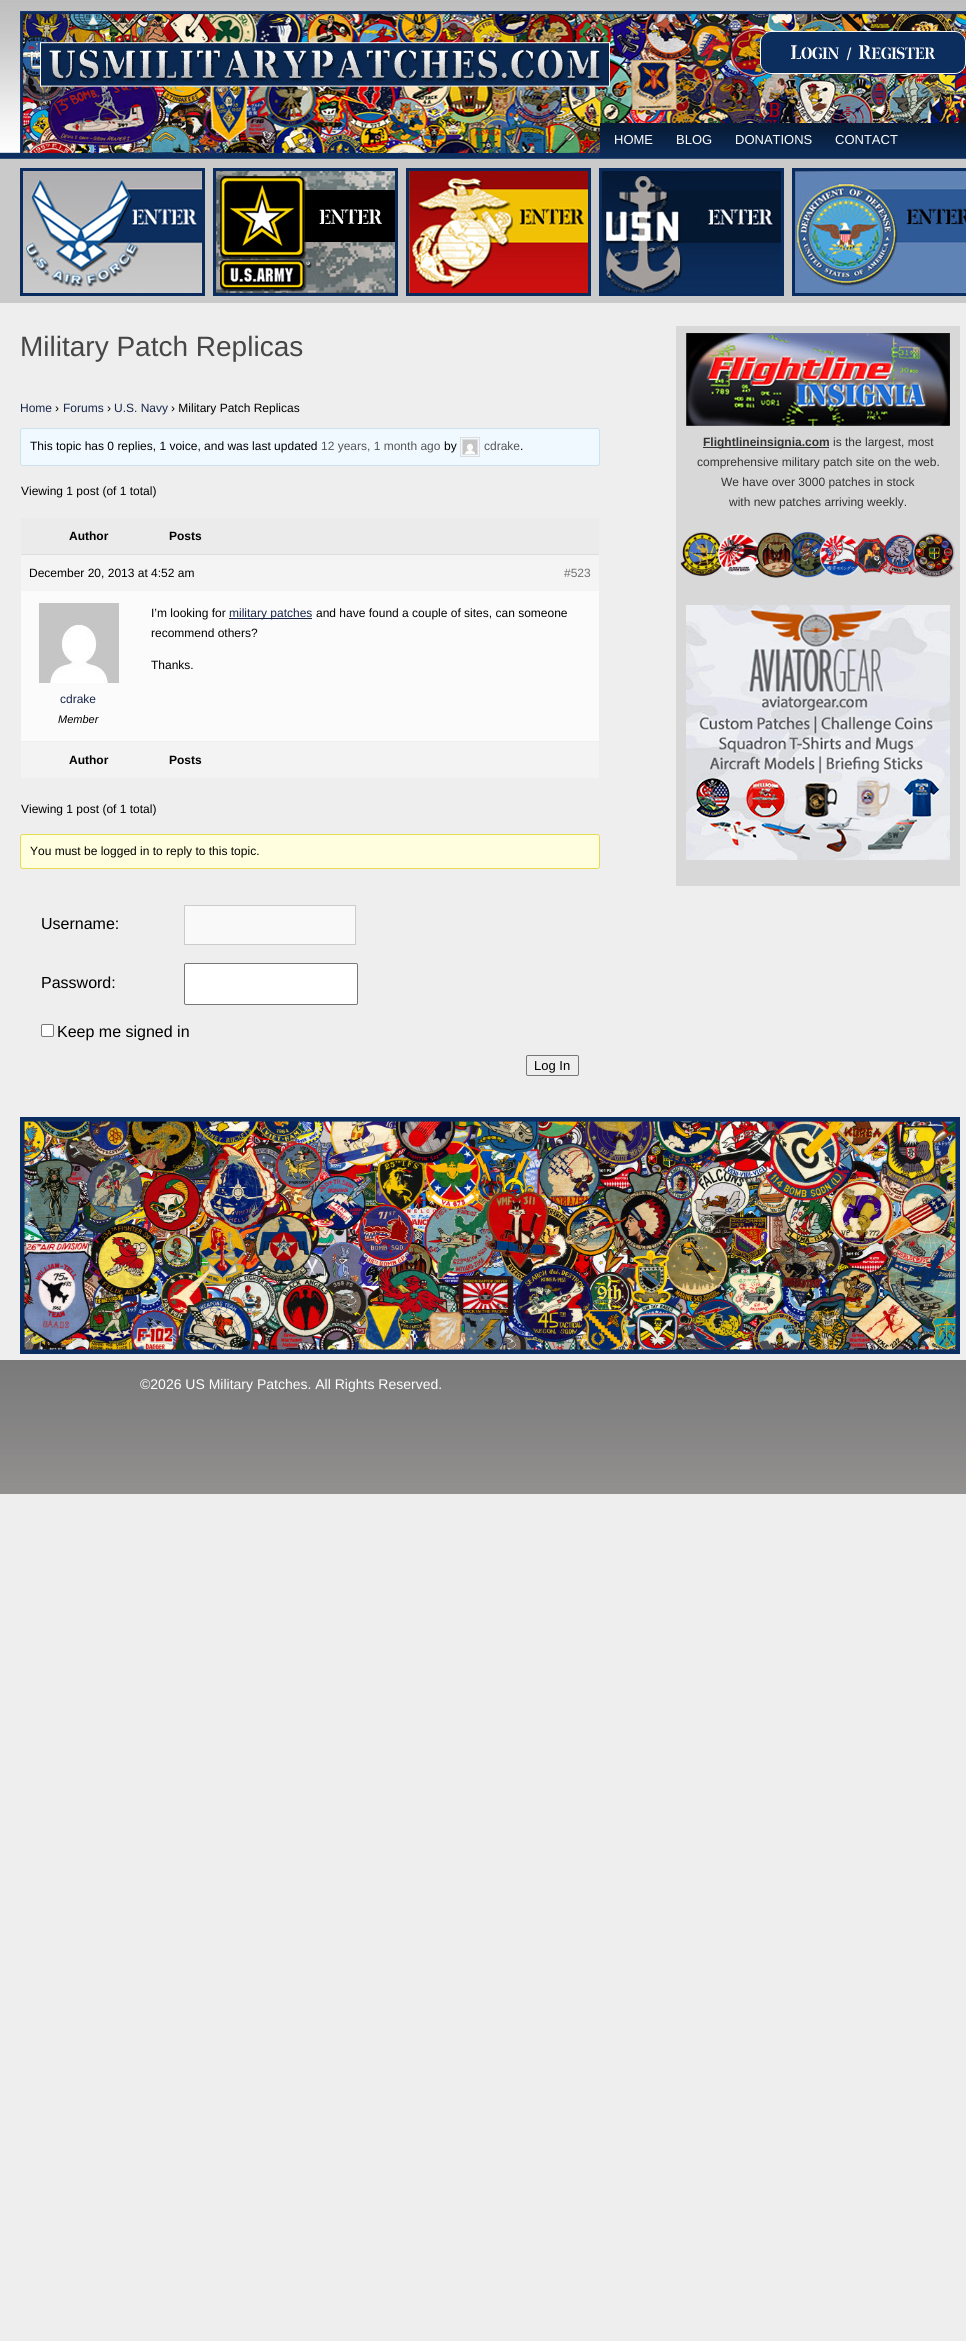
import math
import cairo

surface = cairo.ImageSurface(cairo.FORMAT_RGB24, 966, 2341)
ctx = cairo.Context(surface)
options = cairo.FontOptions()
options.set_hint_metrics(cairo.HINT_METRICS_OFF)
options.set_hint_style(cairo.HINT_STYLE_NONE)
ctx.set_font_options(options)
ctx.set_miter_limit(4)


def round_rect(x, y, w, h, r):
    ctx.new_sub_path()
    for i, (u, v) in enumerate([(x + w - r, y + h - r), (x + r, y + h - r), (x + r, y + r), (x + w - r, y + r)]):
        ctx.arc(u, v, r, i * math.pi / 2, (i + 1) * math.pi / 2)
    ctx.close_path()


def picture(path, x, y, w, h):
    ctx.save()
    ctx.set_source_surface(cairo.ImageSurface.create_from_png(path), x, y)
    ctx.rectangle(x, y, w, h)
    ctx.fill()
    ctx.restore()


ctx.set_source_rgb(0.933, 0.933, 0.933)
ctx.paint()
picture("img1.png", 0, 0, 966, 303)
picture("img2.png", 20, 11, 946, 143)
picture("img3.png", 40, 42, 570, 45)
picture("img4.png", 760, 31, 206, 43)
picture("img5.png", 600, 123, 366, 34)
ctx.select_font_face("Liberation Sans")
ctx.set_font_size(13)
ctx.set_source_rgb(1, 1, 1)
ctx.move_to(614, 144)
ctx.show_text("HOME")
ctx.move_to(676, 144)
ctx.show_text("BLOG")
ctx.move_to(735, 144)
ctx.show_text("DONATIONS")
ctx.move_to(835, 144)
ctx.show_text("CONTACT")
ctx.set_source_rgb(0.039, 0.169, 0.369)
ctx.rectangle(20, 168, 185, 128)
ctx.fill()
picture("img6.png", 23, 171, 179, 122)
ctx.rectangle(213, 168, 185, 128)
ctx.fill()
picture("img7.png", 216, 171, 179, 122)
ctx.rectangle(406, 168, 185, 128)
ctx.fill()
picture("img8.png", 409, 171, 179, 122)
ctx.rectangle(599, 168, 185, 128)
ctx.fill()
picture("img9.png", 602, 171, 179, 122)
ctx.rectangle(792, 168, 174, 128)
ctx.fill()
picture("img10.png", 795, 171, 171, 122)
ctx.set_font_size(28)
ctx.set_source_rgb(0.275, 0.275, 0.275)
ctx.move_to(20, 356)
ctx.show_text("Military Patch Replicas")
ctx.set_font_size(12)
ctx.set_source_rgb(0.094, 0.149, 0.282)
ctx.move_to(20, 412)
ctx.show_text("Home")
ctx.set_source_rgb(0, 0, 0)
ctx.move_to(55, 412)
ctx.show_text("›")
ctx.set_source_rgb(0.094, 0.149, 0.282)
ctx.move_to(63, 412)
ctx.show_text("Forums")
ctx.set_source_rgb(0, 0, 0)
ctx.move_to(107, 412)
ctx.show_text("›")
ctx.set_source_rgb(0.094, 0.149, 0.282)
ctx.move_to(114, 412)
ctx.show_text("U.S. Navy")
ctx.set_source_rgb(0, 0, 0)
ctx.move_to(171, 412)
ctx.show_text("› Military Patch Replicas")
ctx.set_source_rgb(0.941, 0.973, 1)
round_rect(20.5, 428.5, 579, 37, 2.5)
ctx.fill_preserve()
ctx.set_source_rgb(0.808, 0.882, 0.937)
ctx.set_line_width(1)
ctx.stroke()
ctx.set_source_rgb(0, 0, 0)
ctx.move_to(30, 450)
ctx.show_text("This topic has 0 replies, 1 voice, and was last updated")
ctx.set_source_rgb(0.333, 0.333, 0.333)
ctx.move_to(321, 450)
ctx.show_text("12 years, 1 month ago")
ctx.set_source_rgb(0, 0, 0)
ctx.move_to(444, 450)
ctx.show_text("by")
ctx.rectangle(460.5, 437.5, 19, 19)
ctx.set_source_rgb(0.867, 0.867, 0.867)
ctx.stroke()
ctx.rectangle(462.5, 439.5, 15, 15)
ctx.stroke()
picture("img11.png", 463, 440, 14, 14)
ctx.set_source_rgb(0.333, 0.333, 0.333)
ctx.move_to(484, 450)
ctx.show_text("cdrake")
ctx.set_source_rgb(0, 0, 0)
ctx.move_to(520, 450)
ctx.show_text(".")
ctx.move_to(21, 495)
ctx.show_text("Viewing 1 post (of 1 total)")
ctx.set_source_rgb(0.918, 0.918, 0.918)
ctx.rectangle(21, 518, 578, 36)
ctx.fill()
ctx.select_font_face("Liberation Sans", cairo.FONT_SLANT_NORMAL, cairo.FONT_WEIGHT_BOLD)
ctx.set_source_rgb(0, 0, 0)
ctx.move_to(69, 540)
ctx.show_text("Author")
ctx.move_to(169, 540)
ctx.show_text("Posts")
ctx.set_source_rgb(0.957, 0.957, 0.957)
ctx.rectangle(21, 555, 578, 36)
ctx.fill()
ctx.set_source_rgb(0.867, 0.867, 0.867)
ctx.rectangle(21, 554, 578, 1)
ctx.fill()
ctx.select_font_face("Liberation Sans")
ctx.set_source_rgb(0, 0, 0)
ctx.move_to(29, 577)
ctx.show_text("December 20, 2013 at 4:52 am")
ctx.set_source_rgb(0.439, 0.439, 0.439)
ctx.move_to(564, 577)
ctx.show_text("#523")
ctx.set_source_rgb(0.984, 0.984, 0.984)
ctx.rectangle(21, 591, 578, 150)
ctx.fill()
ctx.set_source_rgb(0, 0, 0)
ctx.move_to(151, 617)
ctx.show_text("I’m looking for")
ctx.set_source_rgb(0.094, 0.149, 0.282)
ctx.rectangle(229, 618, 83, 1)
ctx.fill()
ctx.move_to(229, 617)
ctx.show_text("military patches")
ctx.set_source_rgb(0, 0, 0)
ctx.move_to(316, 617)
ctx.show_text("and have found a couple of sites, can someone")
ctx.move_to(151, 637)
ctx.show_text("recommend others?")
ctx.move_to(151, 669)
ctx.show_text("Thanks.")
picture("img12.png", 39, 603, 80, 80)
ctx.set_source_rgb(0.094, 0.149, 0.282)
ctx.move_to(60, 703)
ctx.show_text("cdrake")
ctx.select_font_face("Liberation Sans", cairo.FONT_SLANT_ITALIC)
ctx.set_font_size(11)
ctx.set_source_rgb(0, 0, 0)
ctx.move_to(58, 723)
ctx.show_text("Member")
ctx.set_source_rgb(0.953, 0.953, 0.953)
ctx.rectangle(21, 742, 578, 36)
ctx.fill()
ctx.select_font_face("Liberation Sans", cairo.FONT_SLANT_NORMAL, cairo.FONT_WEIGHT_BOLD)
ctx.set_font_size(12)
ctx.set_source_rgb(0, 0, 0)
ctx.move_to(69, 764)
ctx.show_text("Author")
ctx.move_to(169, 764)
ctx.show_text("Posts")
ctx.select_font_face("Liberation Sans")
ctx.move_to(21, 813)
ctx.show_text("Viewing 1 post (of 1 total)")
ctx.set_source_rgb(1, 1, 0.878)
round_rect(20.5, 834.5, 579, 34, 2.5)
ctx.fill_preserve()
ctx.set_source_rgb(0.902, 0.859, 0.333)
ctx.stroke()
ctx.set_source_rgb(0, 0, 0)
ctx.move_to(30, 855)
ctx.show_text("You must be logged in to reply to this topic.")
ctx.set_font_size(16)
ctx.move_to(41, 929)
ctx.show_text("Username:")
ctx.set_source_rgb(0.976, 0.976, 0.976)
ctx.rectangle(184.5, 905.5, 171, 39)
ctx.fill_preserve()
ctx.set_source_rgb(0.8, 0.8, 0.8)
ctx.stroke()
ctx.set_source_rgb(0, 0, 0)
ctx.move_to(41, 988)
ctx.show_text("Password:")
ctx.set_source_rgb(1, 1, 1)
round_rect(184.5, 963.5, 173, 41, 1.5)
ctx.fill_preserve()
ctx.set_source_rgb(0.463, 0.463, 0.463)
ctx.stroke()
ctx.set_source_rgb(1, 1, 1)
round_rect(41.5, 1024.5, 12, 12, 1.5)
ctx.fill_preserve()
ctx.set_source_rgb(0.463, 0.463, 0.463)
ctx.stroke()
ctx.set_source_rgb(0, 0, 0)
ctx.move_to(57, 1037)
ctx.show_text("Keep me signed in")
round_rect(526.5, 1055.5, 52, 20, 1.5)
ctx.set_source_rgb(0.463, 0.463, 0.463)
ctx.stroke()
ctx.set_font_size(13)
ctx.set_source_rgb(0, 0, 0)
ctx.move_to(534, 1070)
ctx.show_text("Log In")
ctx.set_source_rgb(0.847, 0.847, 0.847)
ctx.rectangle(676, 326, 284, 560)
ctx.fill()
picture("img13.png", 686, 333, 264, 93)
ctx.set_source_rgb(0.2, 0.2, 0.2)
ctx.rectangle(703, 447, 126, 1)
ctx.fill()
ctx.select_font_face("Liberation Sans", cairo.FONT_SLANT_NORMAL, cairo.FONT_WEIGHT_BOLD)
ctx.set_font_size(12)
ctx.move_to(703, 446)
ctx.show_text("Flightlineinsignia.com")
ctx.select_font_face("Liberation Sans")
ctx.move_to(833, 446)
ctx.show_text("is the largest, most")
ctx.move_to(697, 466)
ctx.show_text("comprehensive military patch site on the web.")
ctx.move_to(721, 486)
ctx.show_text("We have over 3000 patches in stock")
ctx.move_to(729, 506)
ctx.show_text("with new patches arriving weekly.")
picture("img14.png", 680, 532, 275, 46)
picture("img15.png", 686, 605, 264, 255)
picture("img16.png", 20, 1117, 940, 237)
picture("img17.png", 0, 1360, 966, 134)
ctx.set_font_size(14)
ctx.set_source_rgb(1, 1, 1)
ctx.move_to(140, 1389)
ctx.show_text("©2026 US Military Patches. All Rights Reserved.")
surface.write_to_png("page.png")
